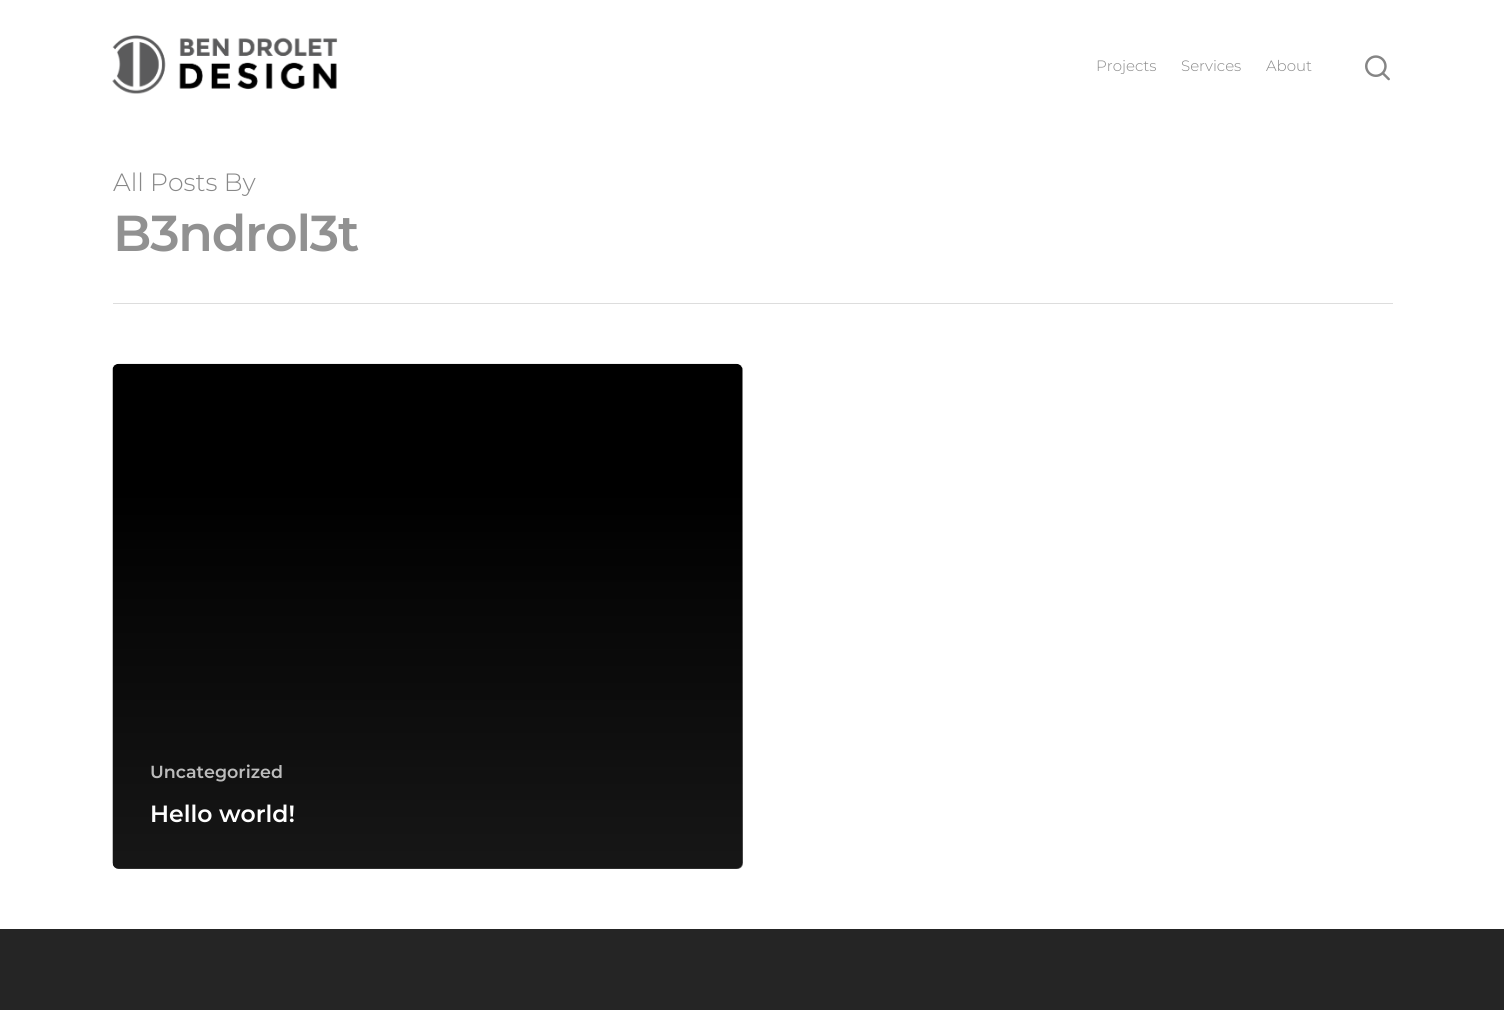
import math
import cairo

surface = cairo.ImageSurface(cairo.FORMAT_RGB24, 1504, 1010)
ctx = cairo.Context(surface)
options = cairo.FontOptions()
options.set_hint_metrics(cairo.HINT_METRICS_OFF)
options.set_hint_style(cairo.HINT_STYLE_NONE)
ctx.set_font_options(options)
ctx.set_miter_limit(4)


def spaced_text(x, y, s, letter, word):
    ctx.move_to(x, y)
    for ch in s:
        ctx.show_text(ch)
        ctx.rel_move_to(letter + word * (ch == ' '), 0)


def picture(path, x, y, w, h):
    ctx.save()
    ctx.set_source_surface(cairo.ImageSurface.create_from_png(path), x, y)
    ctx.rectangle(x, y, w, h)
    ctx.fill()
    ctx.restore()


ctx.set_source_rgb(1, 1, 1)
ctx.paint()
picture("img1.png", 112, 35, 226, 59)
ctx.select_font_face("Montserrat Light")
ctx.set_font_size(15)
ctx.set_source_rgb(0.533, 0.533, 0.533)
ctx.move_to(1096, 71)
ctx.show_text("Projects")
ctx.move_to(1181, 71)
ctx.show_text("Services")
ctx.move_to(1266, 71)
ctx.show_text("About")
picture("img2.png", 1365, 55, 25, 26)
ctx.set_source_rgb(0.867, 0.867, 0.867)
ctx.rectangle(113, 303, 1280, 1)
ctx.fill()
ctx.set_font_size(25)
ctx.set_source_rgb(0.533, 0.533, 0.533)
ctx.move_to(113, 191)
ctx.show_text("All Posts By")
ctx.select_font_face("Montserrat SemiBold")
ctx.set_font_size(50.5)
ctx.set_source_rgb(0.569, 0.569, 0.569)
spaced_text(113, 251, "B3ndrol3t", -1.25, 0)
picture("img3.png", 112, 363, 631, 506)
gradient = cairo.LinearGradient(429, 490, 429, 871)
gradient.add_color_stop_rgba(0, 0.137, 0.137, 0.137, 0)
gradient.add_color_stop_rgba(1, 0.137, 0.137, 0.137, 0.65)
ctx.set_source(gradient)
ctx.new_path()
ctx.move_to(113, 490)
ctx.line_to(743, 490)
ctx.line_to(743, 863)
ctx.curve_to(743, 866.5, 740.5, 869, 737, 869)
ctx.line_to(119, 869)
ctx.curve_to(115.5, 869, 113, 866.5, 113, 863)
ctx.close_path()
ctx.fill()
ctx.set_font_size(17.5)
ctx.set_source_rgb(0.737, 0.737, 0.737)
ctx.move_to(150, 778)
ctx.show_text("Uncategorized")
ctx.set_font_size(23.5)
ctx.set_source_rgb(1, 1, 1)
ctx.move_to(150, 822)
ctx.show_text("Hello world!")
ctx.set_source_rgb(0.145, 0.145, 0.145)
ctx.rectangle(0, 929, 1504, 81)
ctx.fill()
surface.write_to_png("page.png")
